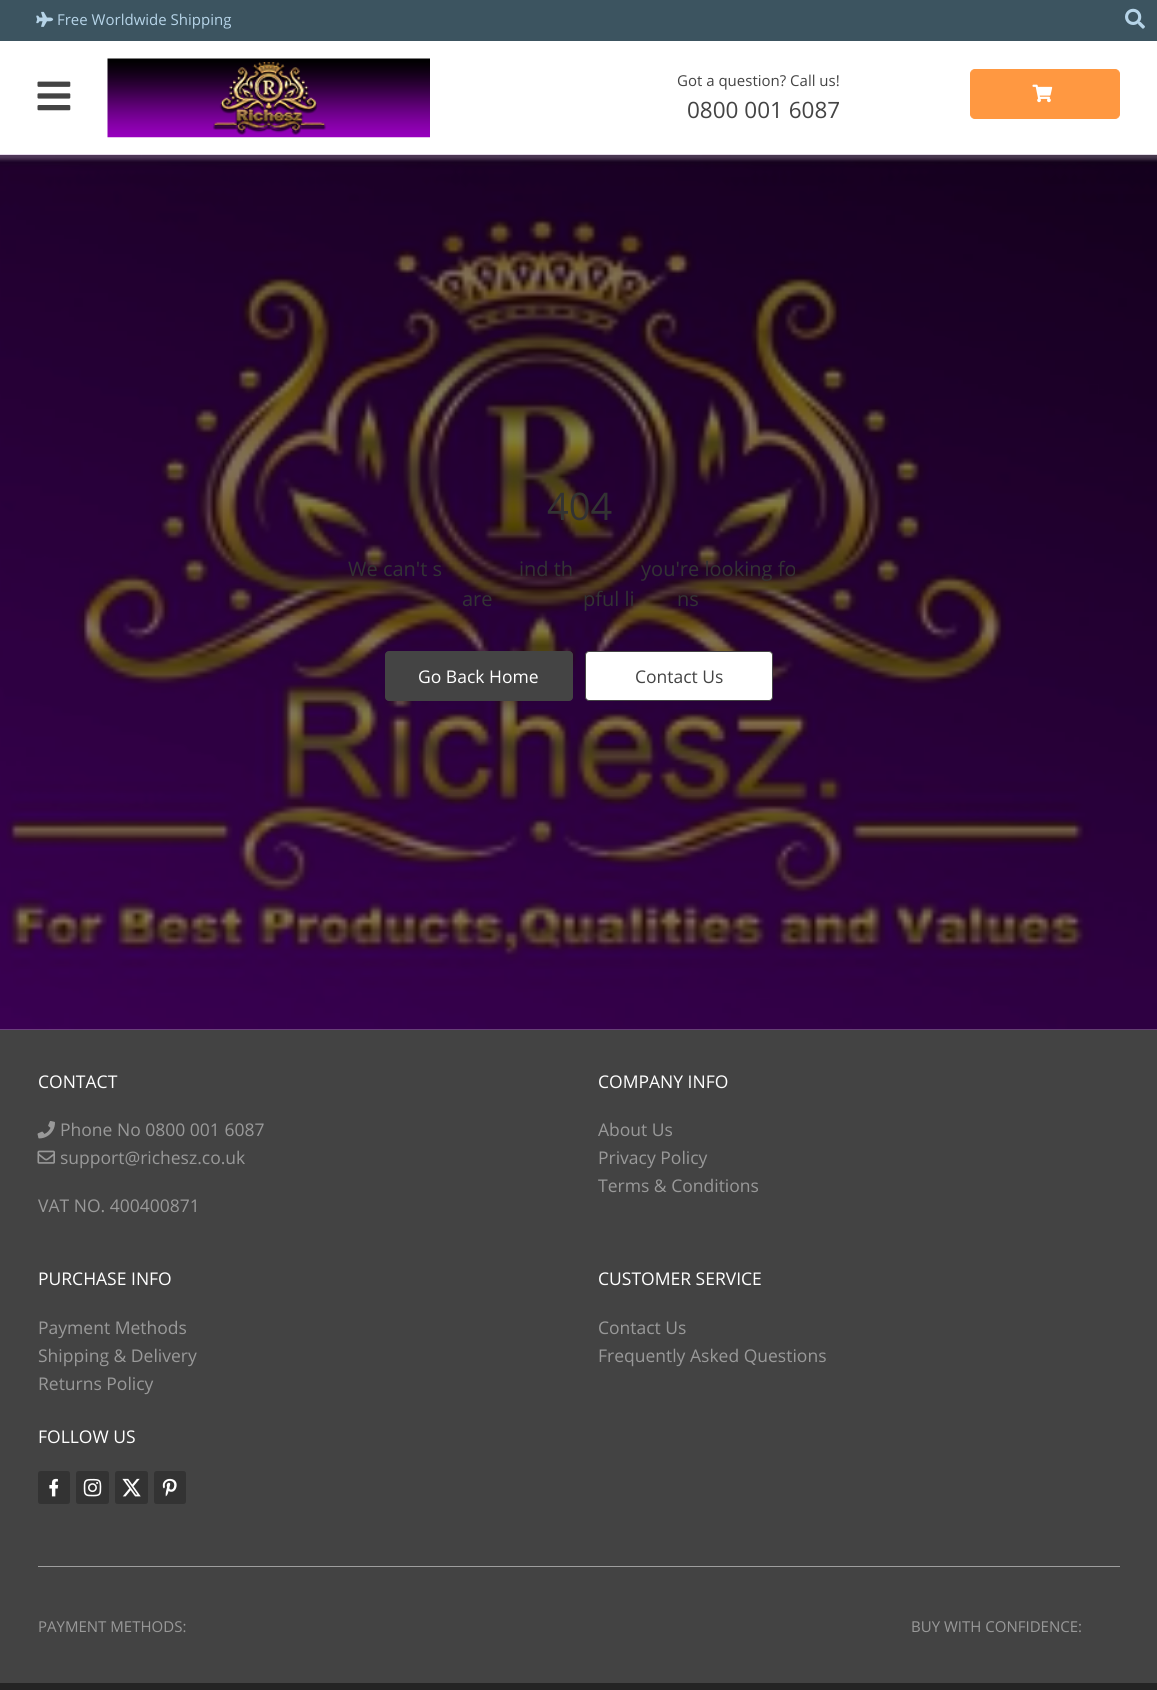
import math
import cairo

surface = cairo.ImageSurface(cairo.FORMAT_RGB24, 1157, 1690)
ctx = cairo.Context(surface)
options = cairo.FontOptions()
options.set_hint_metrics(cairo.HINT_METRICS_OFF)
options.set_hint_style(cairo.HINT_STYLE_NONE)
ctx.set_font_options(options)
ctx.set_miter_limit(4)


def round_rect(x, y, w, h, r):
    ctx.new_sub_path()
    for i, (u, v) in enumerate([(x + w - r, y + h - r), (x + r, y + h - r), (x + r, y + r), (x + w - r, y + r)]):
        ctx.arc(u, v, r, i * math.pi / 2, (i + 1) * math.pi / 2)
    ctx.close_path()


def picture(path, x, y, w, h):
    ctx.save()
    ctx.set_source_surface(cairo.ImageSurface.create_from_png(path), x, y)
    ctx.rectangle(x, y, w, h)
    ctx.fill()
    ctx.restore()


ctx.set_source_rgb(1, 1, 1)
ctx.paint()
ctx.set_source_rgb(0.235, 0.329, 0.376)
ctx.rectangle(0, 0, 1157, 41)
ctx.fill()
picture("img1.png", 36, 11, 18, 16)
ctx.select_font_face("Open Sans")
ctx.set_font_size(15)
ctx.set_source_rgb(0.714, 0.831, 0.91)
ctx.move_to(57, 25)
ctx.show_text("Free Worldwide Shipping")
picture("img2.png", 1125, 8, 20, 21)
picture("img3.png", 37, 81, 34, 30)
picture("img4.png", 107, 58, 323, 80)
ctx.set_source_rgb(0.267, 0.267, 0.267)
ctx.move_to(677, 86)
ctx.show_text("Got a question? Call us!")
ctx.set_font_size(22.5)
ctx.move_to(687, 118)
ctx.show_text("0800 001 6087")
ctx.set_source_rgb(1, 0.596, 0.255)
round_rect(970.5, 69.5, 149, 49, 4.5)
ctx.fill_preserve()
ctx.set_line_width(1)
ctx.stroke()
picture("img5.png", 1032, 84, 21, 19)
picture("img6.png", 0, 154, 1157, 876)
ctx.set_font_size(38)
ctx.set_source_rgb(0.2, 0.2, 0.2)
ctx.move_to(547, 520)
ctx.show_text("404")
ctx.set_font_size(20)
ctx.move_to(348, 576)
ctx.show_text("We can't s")
ctx.move_to(519, 576)
ctx.show_text("ind th")
ctx.move_to(641, 576)
ctx.show_text("you're looking fo")
ctx.move_to(462, 606)
ctx.show_text("are")
ctx.move_to(583, 606)
ctx.show_text("pful li")
ctx.move_to(677, 606)
ctx.show_text("ns")
ctx.set_source_rgb(0.267, 0.267, 0.267)
round_rect(385.5, 651.5, 187, 49, 3.5)
ctx.fill_preserve()
ctx.stroke()
ctx.set_font_size(17.5)
ctx.set_source_rgb(1, 1, 1)
ctx.move_to(418, 683)
ctx.show_text("Go Back Home")
round_rect(585.5, 651.5, 187, 49, 3.5)
ctx.fill_preserve()
ctx.set_source_rgb(0.267, 0.267, 0.267)
ctx.stroke()
ctx.move_to(635, 683)
ctx.show_text("Contact Us")
ctx.set_source_rgb(0.263, 0.263, 0.263)
ctx.rectangle(0, 1030, 1157, 653)
ctx.fill()
ctx.set_source_rgb(1, 1, 1)
ctx.move_to(38, 1088)
ctx.show_text("CONTACT")
picture("img7.png", 37, 1121, 18, 18)
ctx.set_source_rgb(0.6, 0.6, 0.6)
ctx.move_to(60, 1136)
ctx.show_text("Phone No 0800 001 6087")
picture("img8.png", 37, 1150, 18, 14)
ctx.move_to(60, 1164)
ctx.show_text("support@richesz.co.uk")
ctx.move_to(38, 1212)
ctx.show_text("VAT NO. 400400871")
ctx.set_source_rgb(1, 1, 1)
ctx.move_to(598, 1088)
ctx.show_text("COMPANY INFO")
ctx.set_source_rgb(0.6, 0.6, 0.6)
ctx.move_to(598, 1136)
ctx.show_text("About Us")
ctx.move_to(598, 1164)
ctx.show_text("Privacy Policy")
ctx.move_to(598, 1192)
ctx.show_text("Terms & Conditions")
ctx.set_source_rgb(1, 1, 1)
ctx.move_to(38, 1285)
ctx.show_text("PURCHASE INFO")
ctx.set_source_rgb(0.6, 0.6, 0.6)
ctx.move_to(38, 1334)
ctx.show_text("Payment Methods")
ctx.move_to(38, 1362)
ctx.show_text("Shipping & Delivery")
ctx.move_to(38, 1390)
ctx.show_text("Returns Policy")
ctx.set_source_rgb(1, 1, 1)
ctx.move_to(598, 1285)
ctx.show_text("CUSTOMER SERVICE")
ctx.set_source_rgb(0.6, 0.6, 0.6)
ctx.move_to(598, 1334)
ctx.show_text("Contact Us")
ctx.move_to(598, 1362)
ctx.show_text("Frequently Asked Questions")
ctx.set_source_rgb(1, 1, 1)
ctx.move_to(38, 1443)
ctx.show_text("FOLLOW US")
ctx.set_source_rgb(0.2, 0.2, 0.2)
round_rect(38, 1471, 32, 33, 2.5)
ctx.fill()
picture("img9.png", 49, 1478, 10, 19)
round_rect(76, 1471, 33, 33, 2.5)
ctx.fill()
picture("img10.png", 83, 1478, 19, 19)
round_rect(115, 1471, 33, 33, 2.5)
ctx.fill()
picture("img11.png", 122, 1478, 19, 19)
round_rect(154, 1471, 32, 33, 2.5)
ctx.fill()
picture("img12.png", 162, 1478, 15, 19)
ctx.set_source_rgb(0.62, 0.62, 0.62)
ctx.rectangle(38, 1566, 1082, 1)
ctx.fill()
ctx.set_font_size(15)
ctx.set_source_rgb(0.6, 0.6, 0.6)
ctx.move_to(38, 1632)
ctx.show_text("PAYMENT METHODS:")
ctx.move_to(911, 1632)
ctx.show_text("BUY WITH CONFIDENCE:")
ctx.set_source_rgb(0.141, 0.141, 0.141)
ctx.rectangle(0, 1683, 1157, 7)
ctx.fill()
surface.write_to_png("page.png")
